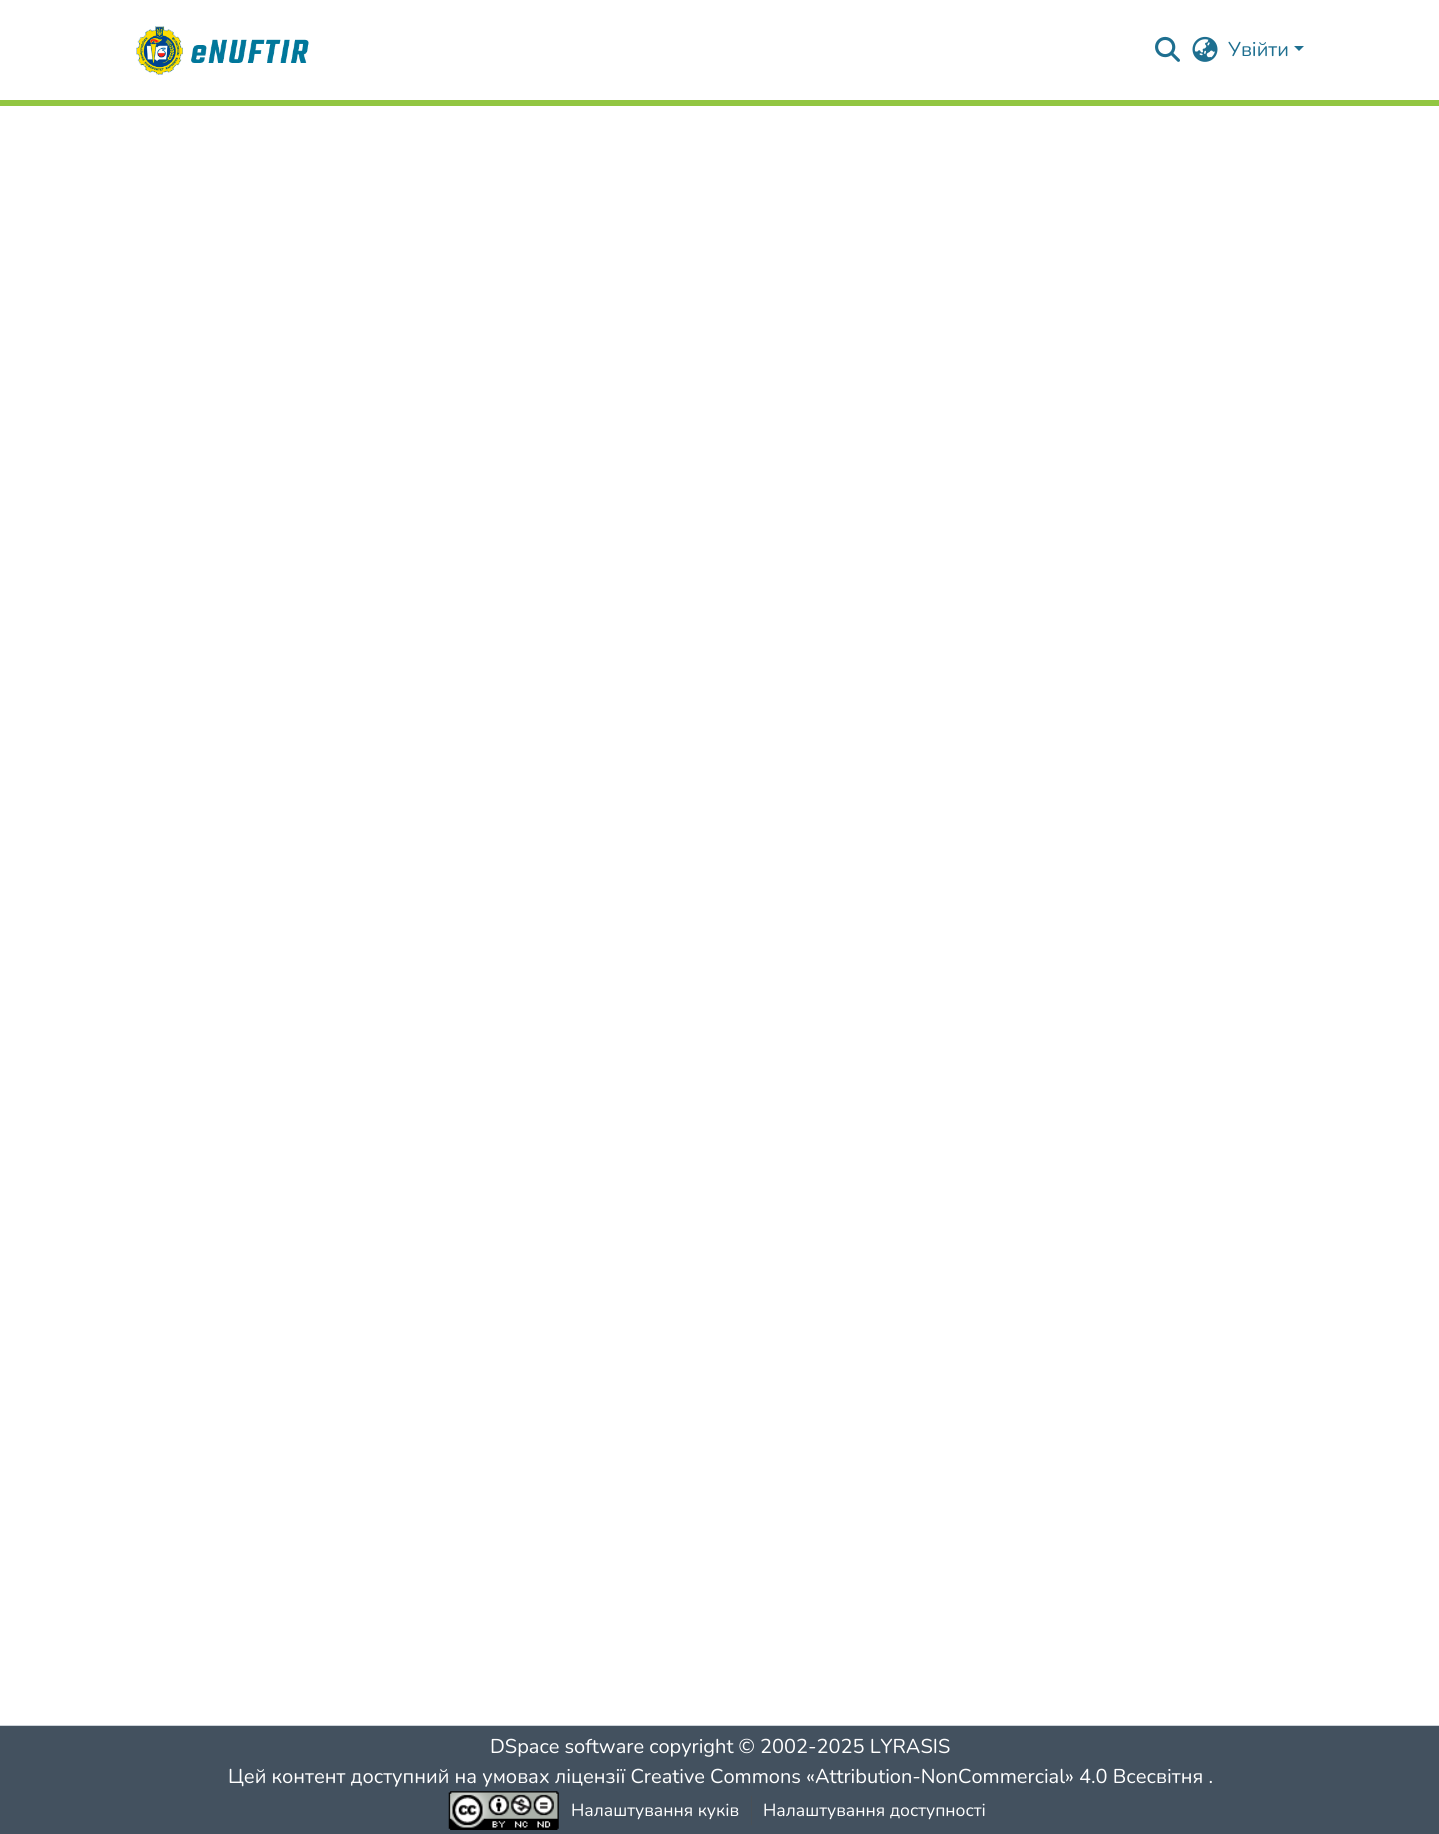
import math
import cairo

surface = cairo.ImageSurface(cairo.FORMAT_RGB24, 1439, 1834)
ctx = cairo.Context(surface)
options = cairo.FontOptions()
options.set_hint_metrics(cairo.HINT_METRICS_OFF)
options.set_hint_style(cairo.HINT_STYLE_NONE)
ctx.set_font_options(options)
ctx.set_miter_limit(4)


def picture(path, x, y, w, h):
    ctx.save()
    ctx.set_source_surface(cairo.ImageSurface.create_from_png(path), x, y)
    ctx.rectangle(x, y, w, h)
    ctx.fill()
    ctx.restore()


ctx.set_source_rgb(1, 1, 1)
ctx.paint()
ctx.set_source_rgb(0.573, 0.776, 0.259)
ctx.rectangle(0, 100, 1439, 6)
ctx.fill()
picture("img1.png", 136, 26, 173, 49)
picture("img2.png", 1155, 36, 25, 26)
picture("img3.png", 1192, 36, 26, 26)
ctx.select_font_face("Nunito")
ctx.set_font_size(20)
ctx.set_source_rgb(0.118, 0.435, 0.565)
ctx.move_to(1228, 56)
ctx.show_text("Увійти")
ctx.new_path()
ctx.move_to(1294, 46)
ctx.line_to(1304, 46)
ctx.line_to(1299, 51)
ctx.close_path()
ctx.fill()
ctx.set_source_rgb(0.263, 0.318, 0.373)
ctx.rectangle(0, 1726, 1439, 108)
ctx.fill()
ctx.set_source_rgb(0.808, 0.831, 0.855)
ctx.rectangle(0, 1725, 1439, 1)
ctx.fill()
ctx.set_source_rgb(1, 1, 1)
ctx.move_to(490, 1753)
ctx.show_text("DSpace software copyright © 2002-2025 LYRASIS")
ctx.move_to(228, 1783)
ctx.show_text("Цей контент доступний на умовах ліцензії Creative Commons «Attribution-NonCommercial» 4.0 Всесвітня .")
picture("img4.png", 448, 1791, 111, 39)
ctx.set_font_size(17.5)
ctx.move_to(571, 1816)
ctx.show_text("Налаштування куків")
ctx.set_source_rgb(0.286, 0.314, 0.341)
ctx.rectangle(751, 1796, 1, 29)
ctx.fill()
ctx.set_source_rgb(1, 1, 1)
ctx.move_to(763, 1816)
ctx.show_text("Налаштування доступності")
surface.write_to_png("page.png")
